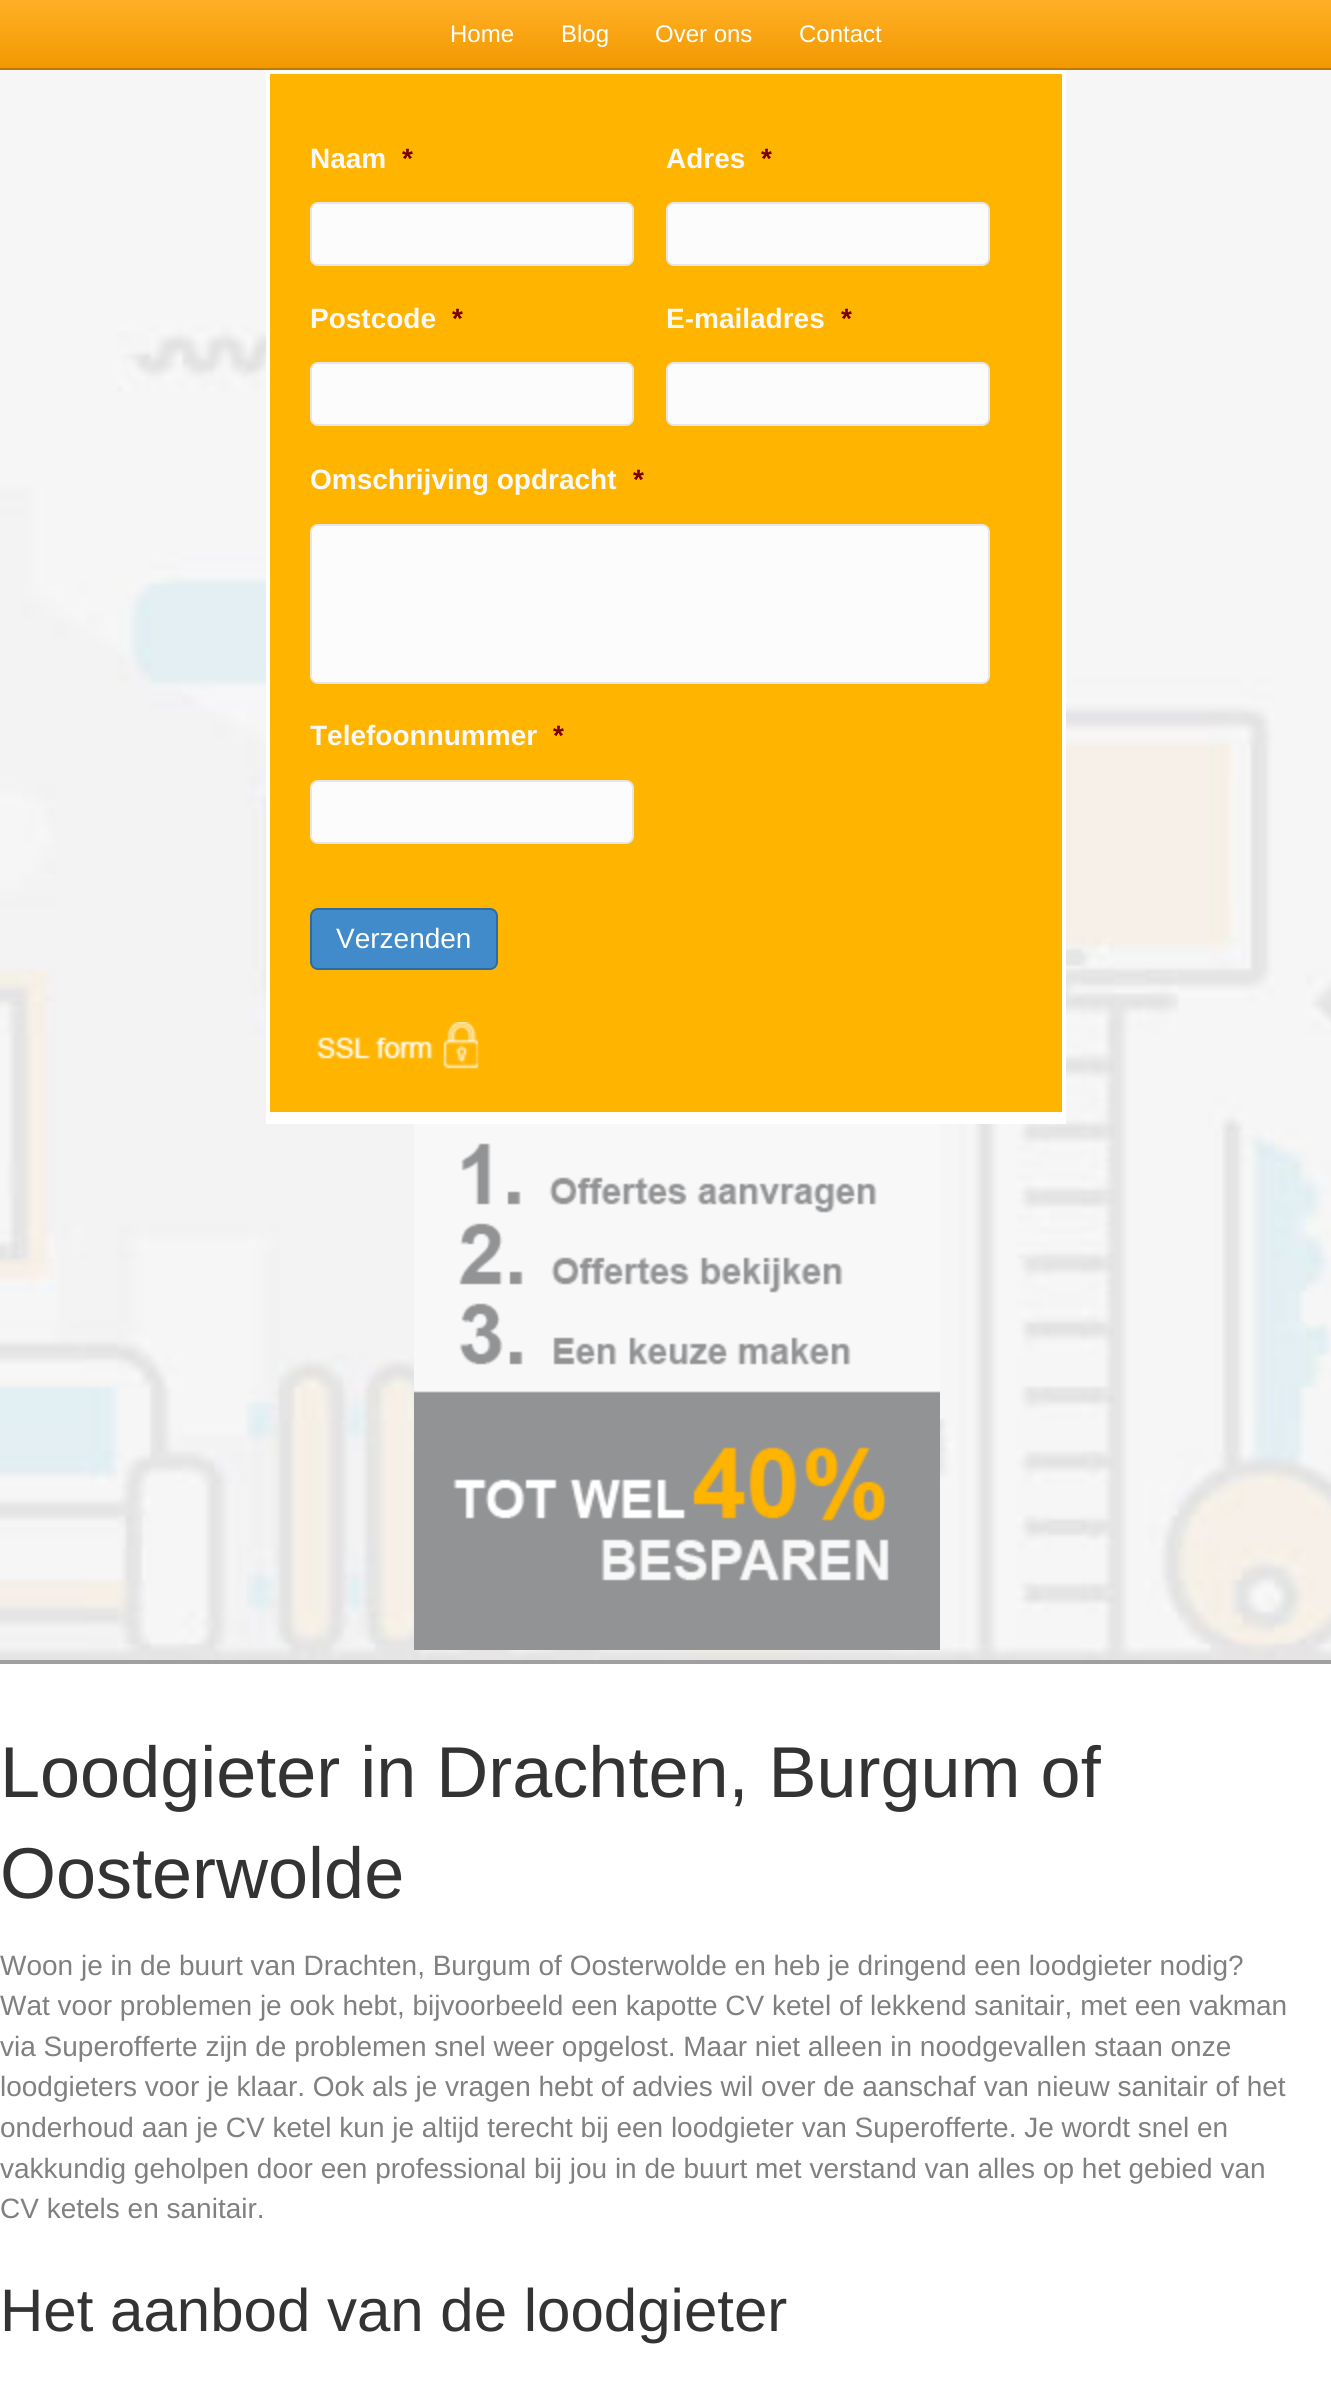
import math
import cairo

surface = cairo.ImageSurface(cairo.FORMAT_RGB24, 1331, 2386)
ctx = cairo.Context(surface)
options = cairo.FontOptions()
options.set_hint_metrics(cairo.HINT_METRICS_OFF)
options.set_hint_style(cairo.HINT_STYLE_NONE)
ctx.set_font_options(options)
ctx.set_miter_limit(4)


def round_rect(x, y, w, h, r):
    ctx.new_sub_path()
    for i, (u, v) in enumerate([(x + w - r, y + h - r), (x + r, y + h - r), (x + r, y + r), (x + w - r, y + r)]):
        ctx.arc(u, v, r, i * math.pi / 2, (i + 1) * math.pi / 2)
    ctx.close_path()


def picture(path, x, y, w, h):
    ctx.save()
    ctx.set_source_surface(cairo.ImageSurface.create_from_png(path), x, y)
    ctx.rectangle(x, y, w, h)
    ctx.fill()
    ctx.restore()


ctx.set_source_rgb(1, 1, 1)
ctx.paint()
gradient = cairo.LinearGradient(666, 0, 666, 68)
gradient.add_color_stop_rgba(0, 1, 0.686, 0.149, 1)
gradient.add_color_stop_rgba(1, 0.949, 0.6, 0, 1)
ctx.set_source(gradient)
ctx.rectangle(0, 0, 1331, 68)
ctx.fill()
ctx.set_source_rgb(0.749, 0.475, 0)
ctx.rectangle(0, 68, 1331, 2)
ctx.fill()
ctx.select_font_face("Liberation Sans")
ctx.set_font_size(24)
ctx.set_source_rgb(1, 1, 1)
ctx.move_to(450, 42)
ctx.show_text("Home")
ctx.move_to(561, 42)
ctx.show_text("Blog")
ctx.move_to(655, 42)
ctx.show_text("Over ons")
ctx.move_to(799, 42)
ctx.show_text("Contact")
picture("img1.png", 0, 70, 1331, 1590)
ctx.set_source_rgb(0.627, 0.627, 0.627)
ctx.rectangle(0, 1660, 1331, 4)
ctx.fill()
ctx.set_source_rgb(1, 0.706, 0)
ctx.rectangle(268, 72, 796, 1042)
ctx.fill_preserve()
ctx.set_source_rgb(1, 1, 1)
ctx.set_line_width(4)
ctx.stroke()
ctx.select_font_face("Liberation Sans", cairo.FONT_SLANT_NORMAL, cairo.FONT_WEIGHT_BOLD)
ctx.set_font_size(28)
ctx.set_source_rgb(0.976, 0.976, 0.976)
ctx.move_to(310, 168)
ctx.show_text("Naam")
ctx.set_source_rgb(0.475, 0, 0)
ctx.move_to(402, 168)
ctx.show_text("*")
ctx.set_source_rgb(0.988, 0.988, 0.988)
round_rect(311, 203, 322, 62, 7)
ctx.fill_preserve()
ctx.set_source_rgb(0.902, 0.902, 0.902)
ctx.set_line_width(2)
ctx.stroke()
ctx.set_source_rgb(0.976, 0.976, 0.976)
ctx.move_to(666, 168)
ctx.show_text("Adres")
ctx.set_source_rgb(0.475, 0, 0)
ctx.move_to(761, 168)
ctx.show_text("*")
ctx.set_source_rgb(0.988, 0.988, 0.988)
round_rect(667, 203, 322, 62, 7)
ctx.fill_preserve()
ctx.set_source_rgb(0.902, 0.902, 0.902)
ctx.stroke()
ctx.set_source_rgb(0.976, 0.976, 0.976)
ctx.move_to(310, 328)
ctx.show_text("Postcode")
ctx.set_source_rgb(0.475, 0, 0)
ctx.move_to(452, 328)
ctx.show_text("*")
ctx.set_source_rgb(0.988, 0.988, 0.988)
round_rect(311, 363, 322, 62, 7)
ctx.fill_preserve()
ctx.set_source_rgb(0.902, 0.902, 0.902)
ctx.stroke()
ctx.set_source_rgb(0.976, 0.976, 0.976)
ctx.move_to(666, 328)
ctx.show_text("E-mailadres")
ctx.set_source_rgb(0.475, 0, 0)
ctx.move_to(841, 328)
ctx.show_text("*")
ctx.set_source_rgb(0.988, 0.988, 0.988)
round_rect(667, 363, 322, 62, 7)
ctx.fill_preserve()
ctx.set_source_rgb(0.902, 0.902, 0.902)
ctx.stroke()
ctx.set_source_rgb(0.976, 0.976, 0.976)
ctx.move_to(310, 489)
ctx.show_text("Omschrijving opdracht")
ctx.set_source_rgb(0.475, 0, 0)
ctx.move_to(633, 489)
ctx.show_text("*")
ctx.set_source_rgb(0.988, 0.988, 0.988)
round_rect(311, 525, 678, 158, 7)
ctx.fill_preserve()
ctx.set_source_rgb(0.902, 0.902, 0.902)
ctx.stroke()
ctx.set_source_rgb(0.976, 0.976, 0.976)
ctx.move_to(310, 745)
ctx.show_text("Telefoonnummer")
ctx.set_source_rgb(0.475, 0, 0)
ctx.move_to(553, 745)
ctx.show_text("*")
ctx.set_source_rgb(0.988, 0.988, 0.988)
round_rect(311, 781, 322, 62, 7)
ctx.fill_preserve()
ctx.set_source_rgb(0.902, 0.902, 0.902)
ctx.stroke()
ctx.set_source_rgb(0.259, 0.545, 0.792)
round_rect(311, 909, 186, 60, 7)
ctx.fill_preserve()
ctx.set_source_rgb(0.176, 0.424, 0.635)
ctx.stroke()
ctx.select_font_face("Liberation Sans")
ctx.set_source_rgb(1, 1, 1)
ctx.move_to(336, 948)
ctx.show_text("Verzenden")
picture("img2.png", 317, 1022, 162, 47)
ctx.rectangle(266, 1116, 800, 8)
ctx.fill()
picture("img3.png", 414, 1124, 526, 526)
ctx.set_font_size(72)
ctx.set_source_rgb(0.2, 0.2, 0.2)
ctx.move_to(0, 1797)
ctx.show_text("Loodgieter in Drachten, Burgum of")
ctx.move_to(0, 1898)
ctx.show_text("Oosterwolde")
ctx.set_font_size(28)
ctx.set_source_rgb(0.502, 0.502, 0.502)
ctx.move_to(0, 1975)
ctx.show_text("Woon je in de buurt van Drachten, Burgum of Oosterwolde en heb je dringend een loodgieter nodig?")
ctx.move_to(0, 2015)
ctx.show_text("Wat voor problemen je ook hebt, bijvoorbeeld een kapotte CV ketel of lekkend sanitair, met een vakman")
ctx.move_to(0, 2056)
ctx.show_text("via Superofferte zijn de problemen snel weer opgelost. Maar niet alleen in noodgevallen staan onze")
ctx.move_to(0, 2096)
ctx.show_text("loodgieters voor je klaar. Ook als je vragen hebt of advies wil over de aanschaf van nieuw sanitair of het")
ctx.move_to(0, 2137)
ctx.show_text("onderhoud aan je CV ketel kun je altijd terecht bij een loodgieter van Superofferte. Je wordt snel en")
ctx.move_to(0, 2178)
ctx.show_text("vakkundig geholpen door een professional bij jou in de buurt met verstand van alles op het gebied van")
ctx.move_to(0, 2218)
ctx.show_text("CV ketels en sanitair.")
ctx.set_font_size(60)
ctx.set_source_rgb(0.2, 0.2, 0.2)
ctx.move_to(0, 2331)
ctx.show_text("Het aanbod van de loodgieter")
surface.write_to_png("page.png")
